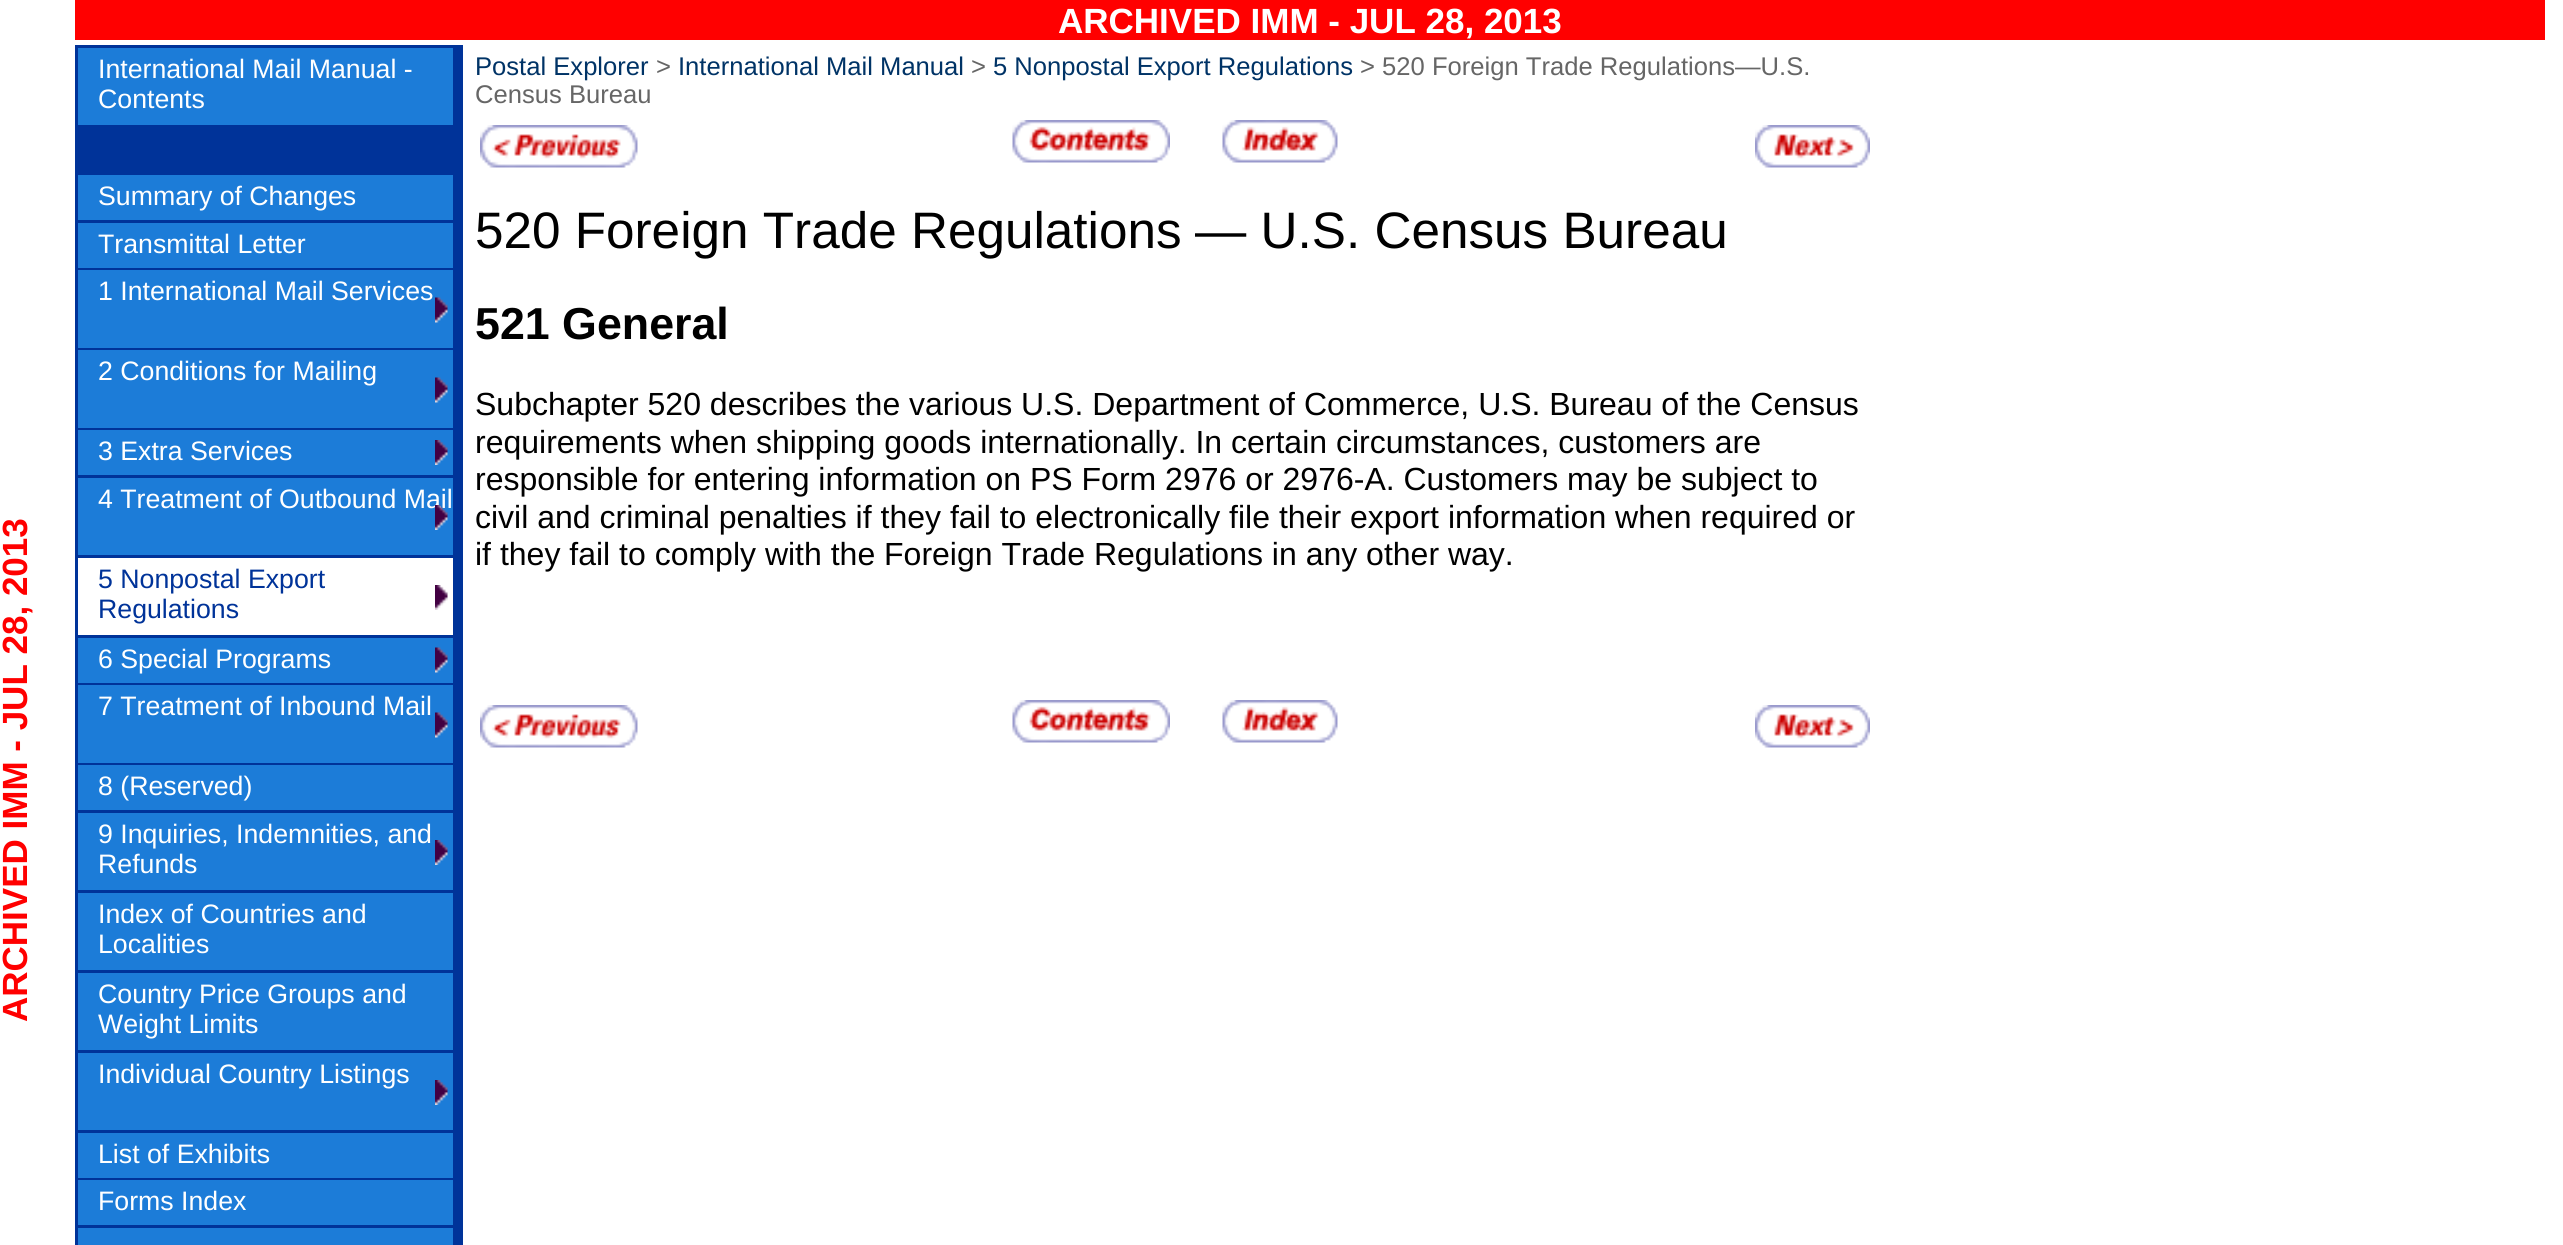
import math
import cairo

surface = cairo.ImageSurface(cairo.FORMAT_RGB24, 2563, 1245)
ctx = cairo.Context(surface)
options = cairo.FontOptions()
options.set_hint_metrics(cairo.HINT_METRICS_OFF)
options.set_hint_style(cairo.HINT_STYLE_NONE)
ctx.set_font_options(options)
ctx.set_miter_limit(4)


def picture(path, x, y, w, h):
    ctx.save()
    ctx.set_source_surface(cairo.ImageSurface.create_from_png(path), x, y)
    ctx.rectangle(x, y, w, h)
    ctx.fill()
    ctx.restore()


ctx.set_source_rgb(1, 1, 1)
ctx.paint()
ctx.select_font_face("Liberation Sans", cairo.FONT_SLANT_NORMAL, cairo.FONT_WEIGHT_BOLD)
ctx.set_font_size(35)
ctx.set_source_rgb(1, 0, 0)
ctx.save()
ctx.translate(27, 1022)
ctx.rotate(-90 * math.pi / 180)
ctx.move_to(0, 0)
ctx.show_text("ARCHIVED IMM - JUL 28, 2013")
ctx.restore()
ctx.set_source_rgb(0, 0.2, 0.6)
ctx.rectangle(75, 45, 388, 1200)
ctx.fill()
ctx.set_source_rgb(0.11, 0.486, 0.847)
ctx.rectangle(78, 48, 375, 77)
ctx.fill()
ctx.select_font_face("Liberation Sans")
ctx.set_font_size(26.7)
ctx.set_source_rgb(1, 1, 1)
ctx.move_to(98, 78)
ctx.show_text("International Mail Manual -")
ctx.move_to(98, 108)
ctx.show_text("Contents")
ctx.set_source_rgb(0.11, 0.486, 0.847)
ctx.rectangle(78, 175, 375, 45)
ctx.fill()
ctx.set_source_rgb(1, 1, 1)
ctx.move_to(98, 205)
ctx.show_text("Summary of Changes")
ctx.set_source_rgb(0.11, 0.486, 0.847)
ctx.rectangle(78, 223, 375, 45)
ctx.fill()
ctx.set_source_rgb(1, 1, 1)
ctx.move_to(98, 253)
ctx.show_text("Transmittal Letter")
ctx.set_source_rgb(0.11, 0.486, 0.847)
ctx.rectangle(78, 270, 375, 78)
ctx.fill()
ctx.set_source_rgb(1, 1, 1)
ctx.move_to(98, 300)
ctx.show_text("1 International Mail Services")
picture("img1.png", 435, 297, 13, 26)
ctx.set_source_rgb(0.11, 0.486, 0.847)
ctx.rectangle(78, 350, 375, 78)
ctx.fill()
ctx.set_source_rgb(1, 1, 1)
ctx.move_to(98, 380)
ctx.show_text("2 Conditions for Mailing")
picture("img1.png", 435, 377, 13, 26)
ctx.set_source_rgb(0.11, 0.486, 0.847)
ctx.rectangle(78, 430, 375, 45)
ctx.fill()
ctx.set_source_rgb(1, 1, 1)
ctx.move_to(98, 460)
ctx.show_text("3 Extra Services")
picture("img2.png", 435, 440, 13, 25)
ctx.set_source_rgb(0.11, 0.486, 0.847)
ctx.rectangle(78, 478, 375, 77)
ctx.fill()
ctx.set_source_rgb(1, 1, 1)
ctx.move_to(98, 508)
ctx.show_text("4 Treatment of Outbound Mail")
picture("img3.png", 435, 505, 13, 25)
ctx.rectangle(78, 558, 375, 77)
ctx.fill()
ctx.set_source_rgb(0, 0.2, 0.6)
ctx.move_to(98, 588)
ctx.show_text("5 Nonpostal Export")
ctx.move_to(98, 618)
ctx.show_text("Regulations")
picture("img4.png", 435, 585, 13, 25)
ctx.set_source_rgb(0.11, 0.486, 0.847)
ctx.rectangle(78, 638, 375, 45)
ctx.fill()
ctx.set_source_rgb(1, 1, 1)
ctx.move_to(98, 668)
ctx.show_text("6 Special Programs")
picture("img1.png", 435, 647, 13, 26)
ctx.set_source_rgb(0.11, 0.486, 0.847)
ctx.rectangle(78, 685, 375, 78)
ctx.fill()
ctx.set_source_rgb(1, 1, 1)
ctx.move_to(98, 715)
ctx.show_text("7 Treatment of Inbound Mail")
picture("img1.png", 435, 712, 13, 26)
ctx.set_source_rgb(0.11, 0.486, 0.847)
ctx.rectangle(78, 765, 375, 45)
ctx.fill()
ctx.set_source_rgb(1, 1, 1)
ctx.move_to(98, 795)
ctx.show_text("8 (Reserved)")
ctx.set_source_rgb(0.11, 0.486, 0.847)
ctx.rectangle(78, 813, 375, 77)
ctx.fill()
ctx.set_source_rgb(1, 1, 1)
ctx.move_to(98, 843)
ctx.show_text("9 Inquiries, Indemnities, and")
ctx.move_to(98, 873)
ctx.show_text("Refunds")
picture("img2.png", 435, 840, 13, 25)
ctx.set_source_rgb(0.11, 0.486, 0.847)
ctx.rectangle(78, 893, 375, 77)
ctx.fill()
ctx.set_source_rgb(1, 1, 1)
ctx.move_to(98, 923)
ctx.show_text("Index of Countries and")
ctx.move_to(98, 953)
ctx.show_text("Localities")
ctx.set_source_rgb(0.11, 0.486, 0.847)
ctx.rectangle(78, 973, 375, 77)
ctx.fill()
ctx.set_source_rgb(1, 1, 1)
ctx.move_to(98, 1003)
ctx.show_text("Country Price Groups and")
ctx.move_to(98, 1033)
ctx.show_text("Weight Limits")
ctx.set_source_rgb(0.11, 0.486, 0.847)
ctx.rectangle(78, 1053, 375, 77)
ctx.fill()
ctx.set_source_rgb(1, 1, 1)
ctx.move_to(98, 1083)
ctx.show_text("Individual Country Listings")
picture("img2.png", 435, 1080, 13, 25)
ctx.set_source_rgb(0.11, 0.486, 0.847)
ctx.rectangle(78, 1133, 375, 45)
ctx.fill()
ctx.set_source_rgb(1, 1, 1)
ctx.move_to(98, 1163)
ctx.show_text("List of Exhibits")
ctx.set_source_rgb(0.11, 0.486, 0.847)
ctx.rectangle(78, 1180, 375, 45)
ctx.fill()
ctx.set_source_rgb(1, 1, 1)
ctx.move_to(98, 1210)
ctx.show_text("Forms Index")
ctx.set_source_rgb(0.11, 0.486, 0.847)
ctx.rectangle(78, 1228, 375, 17)
ctx.fill()
ctx.set_source_rgb(1, 0, 0)
ctx.rectangle(75, 0, 2470, 40)
ctx.fill()
ctx.select_font_face("Liberation Sans", cairo.FONT_SLANT_NORMAL, cairo.FONT_WEIGHT_BOLD)
ctx.set_font_size(35)
ctx.set_source_rgb(1, 1, 1)
ctx.move_to(1058, 33)
ctx.show_text("ARCHIVED IMM - JUL 28, 2013")
ctx.select_font_face("Liberation Sans")
ctx.set_font_size(25.6)
ctx.set_source_rgb(0, 0.2, 0.4)
ctx.move_to(475, 75)
ctx.show_text("Postal Explorer")
ctx.set_source_rgb(0.4, 0.4, 0.4)
ctx.move_to(656, 75)
ctx.show_text(">")
ctx.set_source_rgb(0, 0.2, 0.4)
ctx.move_to(678, 75)
ctx.show_text("International Mail Manual")
ctx.set_source_rgb(0.4, 0.4, 0.4)
ctx.move_to(971, 75)
ctx.show_text(">")
ctx.set_source_rgb(0, 0.2, 0.4)
ctx.move_to(993, 75)
ctx.show_text("5 Nonpostal Export Regulations")
ctx.set_source_rgb(0.4, 0.4, 0.4)
ctx.move_to(1360, 75)
ctx.show_text("> 520 Foreign Trade Regulations—U.S.")
ctx.move_to(475, 103)
ctx.show_text("Census Bureau")
picture("img5.png", 480, 125, 158, 43)
picture("img6.png", 1012, 120, 158, 43)
picture("img7.png", 1222, 120, 116, 43)
picture("img8.png", 1755, 125, 115, 43)
ctx.set_font_size(51.25)
ctx.set_source_rgb(0, 0, 0)
ctx.move_to(475, 248)
ctx.show_text("520 Foreign Trade Regulations")
ctx.move_to(1195, 248)
ctx.show_text("— U.S. Census Bureau")
ctx.select_font_face("Liberation Sans", cairo.FONT_SLANT_NORMAL, cairo.FONT_WEIGHT_BOLD)
ctx.set_font_size(44.75)
ctx.move_to(475, 339)
ctx.show_text("521 General")
ctx.select_font_face("Liberation Sans")
ctx.set_font_size(32)
ctx.move_to(475, 415)
ctx.show_text("Subchapter 520 describes the various U.S. Department of Commerce, U.S. Bureau of the Census")
ctx.move_to(475, 453)
ctx.show_text("requirements when shipping goods internationally. In certain circumstances, customers are")
ctx.move_to(475, 490)
ctx.show_text("responsible for entering information on PS Form 2976 or 2976-A. Customers may be subject to")
ctx.move_to(475, 528)
ctx.show_text("civil and criminal penalties if they fail to electronically file their export information when required or")
ctx.move_to(475, 565)
ctx.show_text("if they fail to comply with the Foreign Trade Regulations in any other way.")
picture("img5.png", 480, 705, 158, 43)
picture("img6.png", 1012, 700, 158, 43)
picture("img7.png", 1222, 700, 116, 43)
picture("img8.png", 1755, 705, 115, 43)
surface.write_to_png("page.png")
